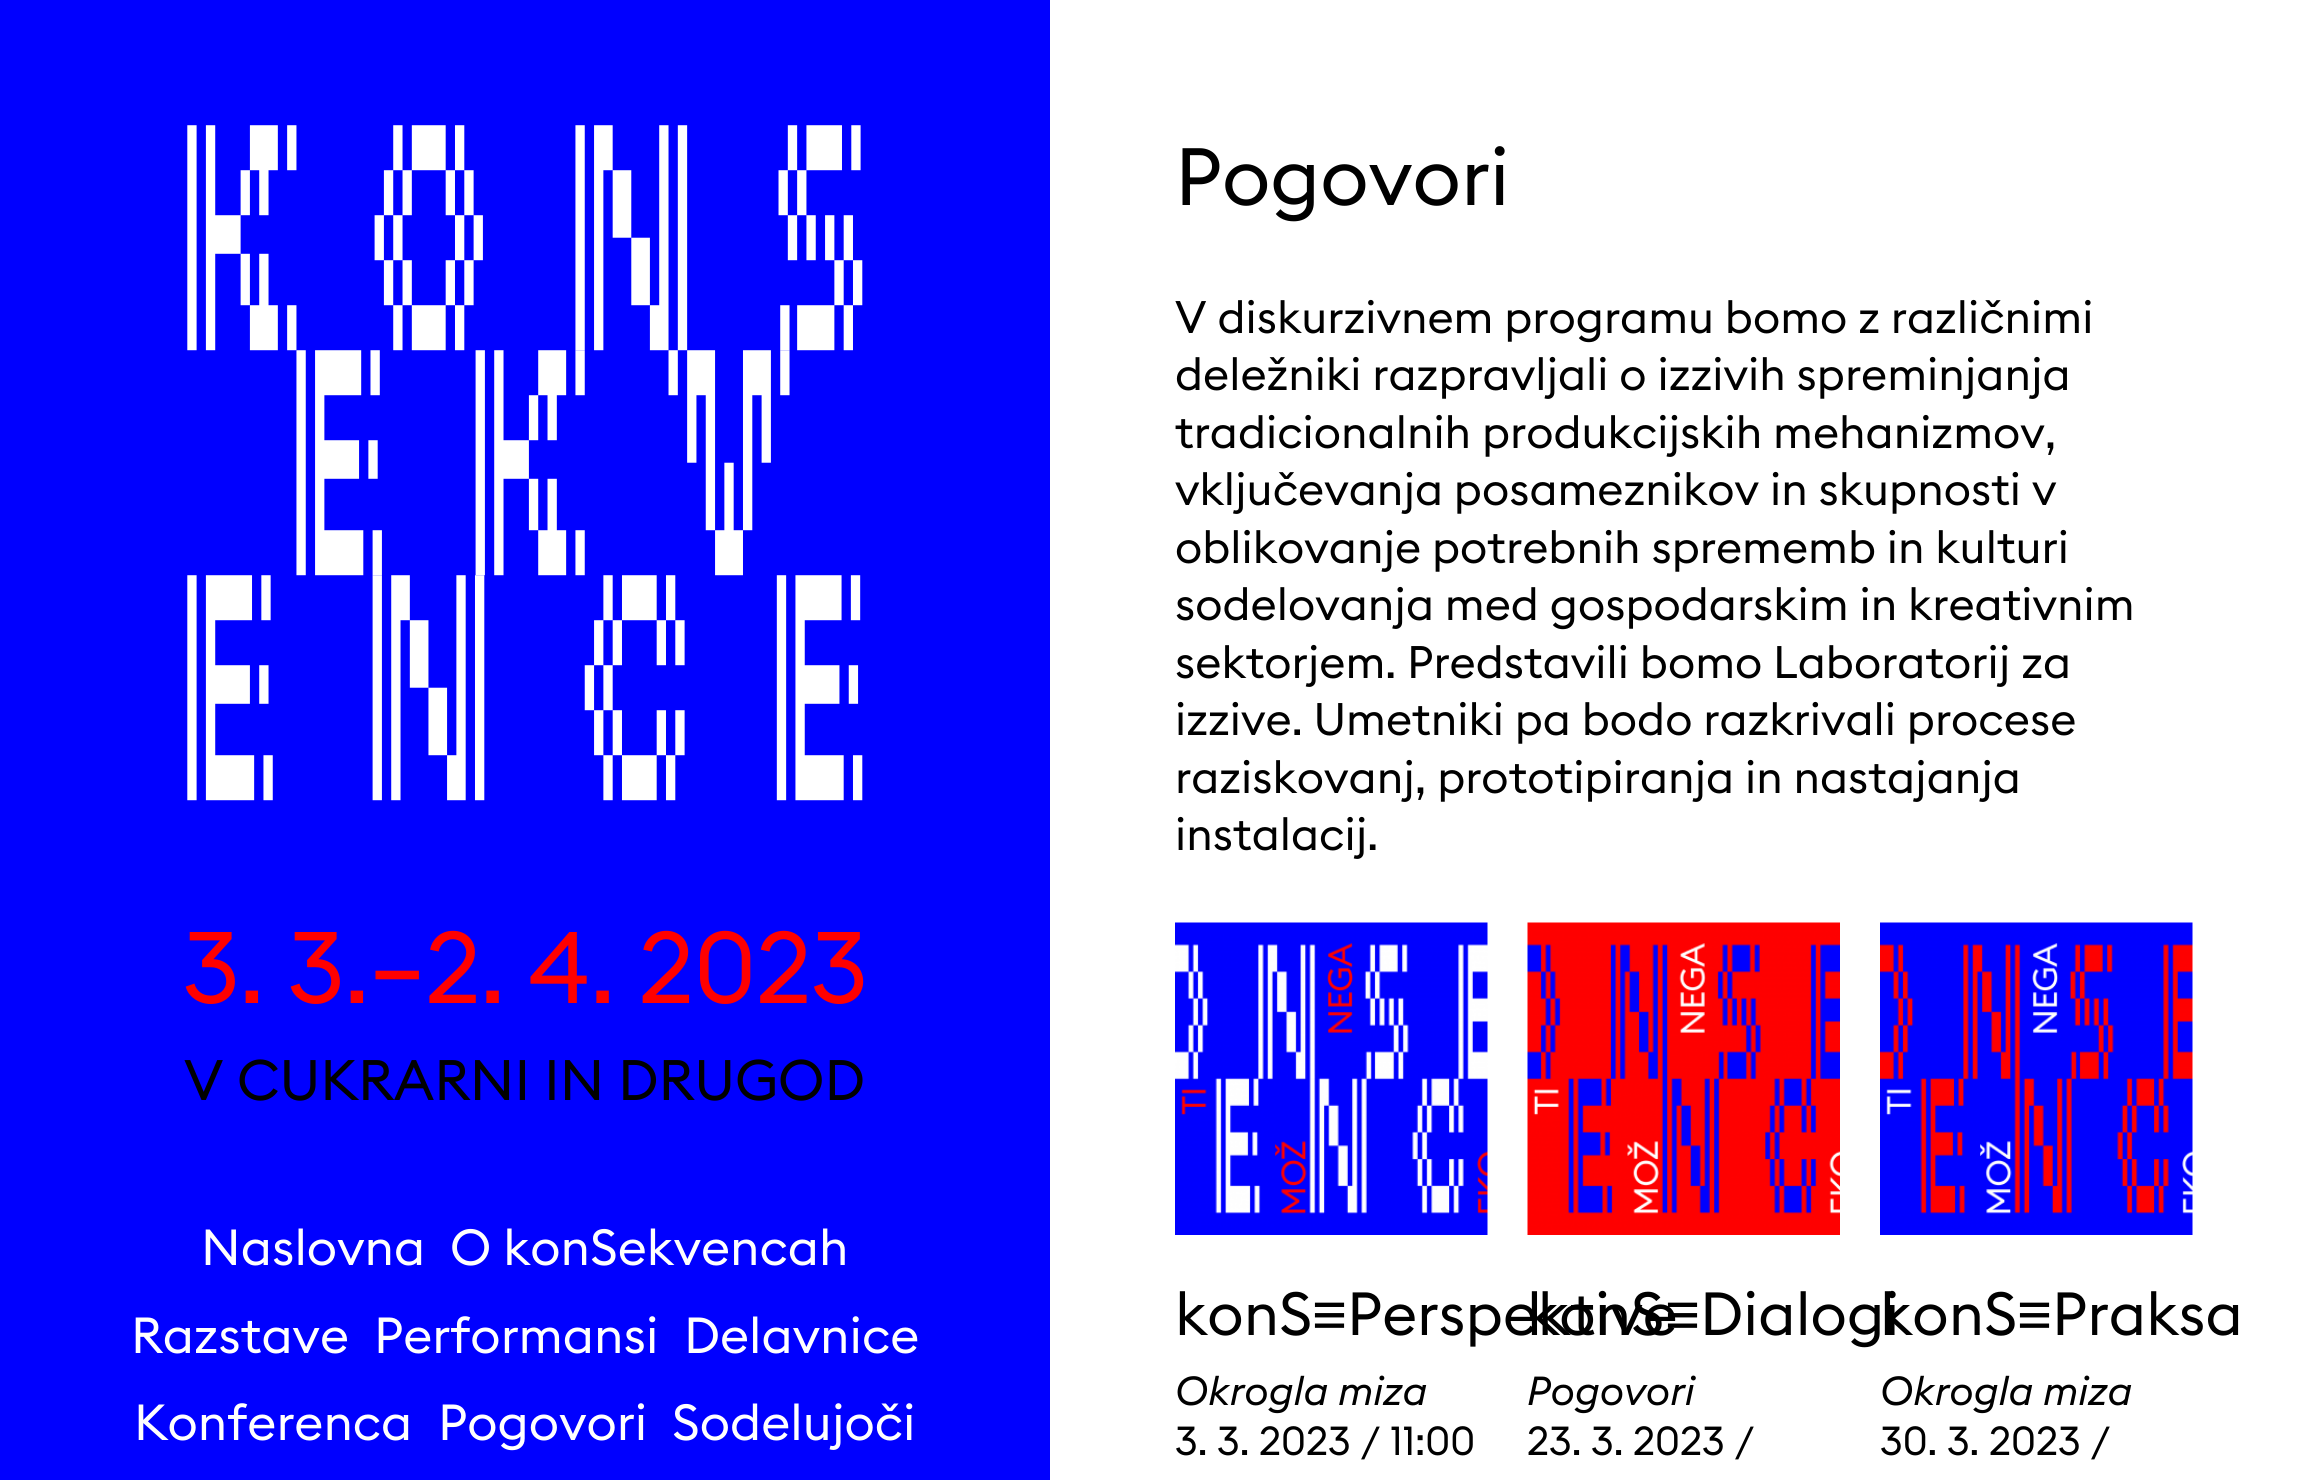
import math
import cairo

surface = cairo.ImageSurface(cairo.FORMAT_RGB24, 2317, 1480)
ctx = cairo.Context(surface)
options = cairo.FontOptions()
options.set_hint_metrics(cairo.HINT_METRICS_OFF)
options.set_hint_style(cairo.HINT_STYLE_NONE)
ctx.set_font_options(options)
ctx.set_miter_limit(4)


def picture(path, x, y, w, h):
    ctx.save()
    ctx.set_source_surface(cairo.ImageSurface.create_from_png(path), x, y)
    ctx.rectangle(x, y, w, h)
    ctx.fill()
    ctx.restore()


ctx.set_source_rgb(1, 1, 1)
ctx.paint()
ctx.set_source_rgb(0, 0, 1)
ctx.rectangle(0, 0, 1050, 1480)
ctx.fill()
picture("img1.png", 187, 125, 676, 676)
ctx.select_font_face("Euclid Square")
ctx.set_font_size(100)
ctx.set_source_rgb(1, 0, 0)
ctx.move_to(183, 1003)
ctx.show_text("3. 3.–2. 4. 2023")
ctx.set_font_size(56.25)
ctx.set_source_rgb(0, 0, 0)
ctx.move_to(184, 1100)
ctx.show_text("V CUKRARNI IN DRUGOD")
ctx.set_font_size(50)
ctx.set_source_rgb(1, 1, 1)
ctx.move_to(201, 1265)
ctx.show_text("Naslovna")
ctx.move_to(450, 1265)
ctx.show_text("O konSekvencah")
ctx.move_to(131, 1353)
ctx.show_text("Razstave")
ctx.move_to(374, 1353)
ctx.show_text("Performansi")
ctx.move_to(684, 1353)
ctx.show_text("Delavnice")
ctx.move_to(134, 1440)
ctx.show_text("Konferenca")
ctx.move_to(438, 1440)
ctx.show_text("Pogovori")
ctx.move_to(672, 1440)
ctx.show_text("Sodelujoči")
ctx.set_font_size(80)
ctx.set_source_rgb(0, 0, 0)
ctx.move_to(1175, 205)
ctx.show_text("Pogovori")
ctx.set_font_size(45)
ctx.move_to(1175, 333)
ctx.show_text("V diskurzivnem programu bomo z različnimi")
ctx.move_to(1175, 390)
ctx.show_text("deležniki razpravljali o izzivih spreminjanja")
ctx.move_to(1175, 448)
ctx.show_text("tradicionalnih produkcijskih mehanizmov,")
ctx.move_to(1175, 505)
ctx.show_text("vključevanja posameznikov in skupnosti v")
ctx.move_to(1175, 563)
ctx.show_text("oblikovanje potrebnih sprememb in kulturi")
ctx.move_to(1175, 620)
ctx.show_text("sodelovanja med gospodarskim in kreativnim")
ctx.move_to(1175, 678)
ctx.show_text("sektorjem. Predstavili bomo Laboratorij za")
ctx.move_to(1175, 735)
ctx.show_text("izzive. Umetniki pa bodo razkrivali procese")
ctx.move_to(1175, 793)
ctx.show_text("raziskovanj, prototipiranja in nastajanja")
ctx.move_to(1175, 850)
ctx.show_text("instalacij.")
picture("img2.png", 1175, 922, 313, 313)
ctx.set_font_size(60)
ctx.move_to(1175, 1335)
ctx.show_text("konS")
ctx.select_font_face("Liberation Sans")
ctx.move_to(1312, 1335)
ctx.show_text("≡")
ctx.select_font_face("Euclid Square")
ctx.move_to(1347, 1335)
ctx.show_text("Perspektive")
ctx.select_font_face("Euclid Square", cairo.FONT_SLANT_ITALIC)
ctx.set_font_size(40)
ctx.move_to(1175, 1405)
ctx.show_text("Okrogla miza")
ctx.select_font_face("Euclid Square")
ctx.move_to(1175, 1455)
ctx.show_text("3. 3. 2023 / 11:00")
picture("img3.png", 1527, 922, 313, 313)
ctx.set_font_size(60)
ctx.move_to(1527, 1335)
ctx.show_text("konS")
ctx.select_font_face("Liberation Sans")
ctx.move_to(1665, 1335)
ctx.show_text("≡")
ctx.select_font_face("Euclid Square")
ctx.move_to(1700, 1335)
ctx.show_text("Dialogi")
ctx.select_font_face("Euclid Square", cairo.FONT_SLANT_ITALIC)
ctx.set_font_size(40)
ctx.move_to(1527, 1405)
ctx.show_text("Pogovori")
ctx.select_font_face("Euclid Square")
ctx.move_to(1527, 1455)
ctx.show_text("23. 3. 2023 /")
picture("img4.png", 1880, 922, 313, 313)
ctx.set_font_size(60)
ctx.move_to(1880, 1335)
ctx.show_text("konS")
ctx.select_font_face("Liberation Sans")
ctx.move_to(2017, 1335)
ctx.show_text("≡")
ctx.select_font_face("Euclid Square")
ctx.move_to(2052, 1335)
ctx.show_text("Praksa")
ctx.select_font_face("Euclid Square", cairo.FONT_SLANT_ITALIC)
ctx.set_font_size(40)
ctx.move_to(1880, 1405)
ctx.show_text("Okrogla miza")
ctx.select_font_face("Euclid Square")
ctx.move_to(1880, 1455)
ctx.show_text("30. 3. 2023 /")
surface.write_to_png("page.png")
